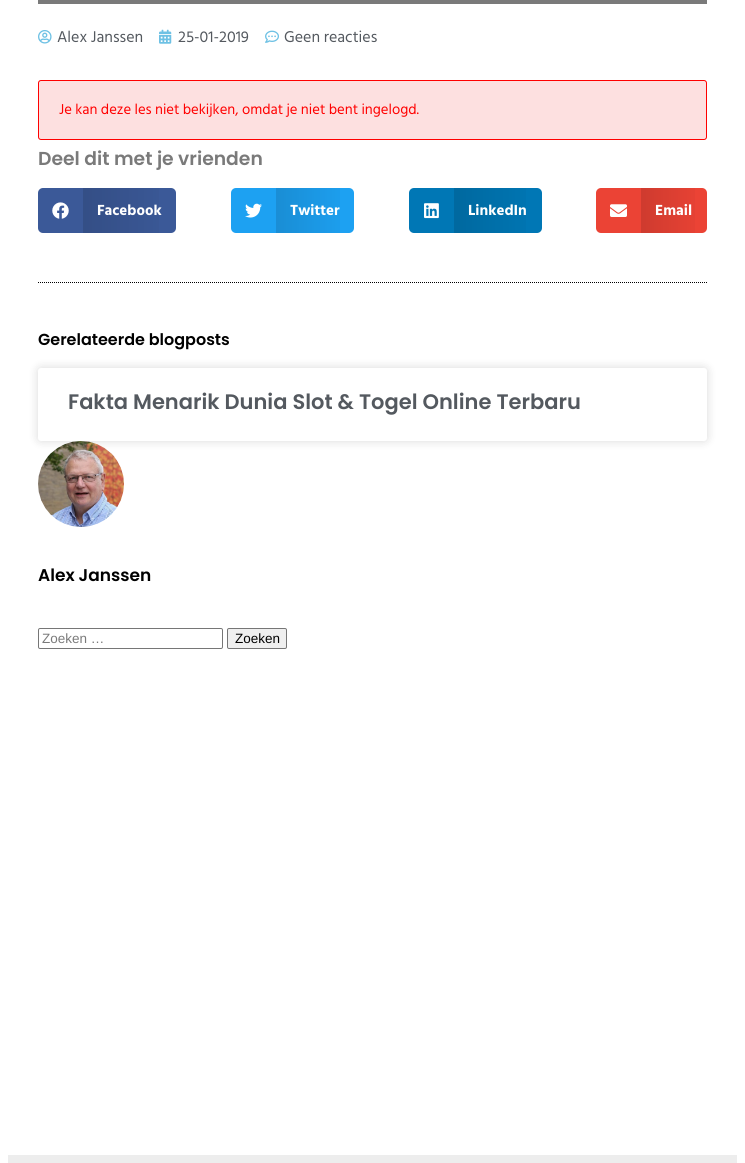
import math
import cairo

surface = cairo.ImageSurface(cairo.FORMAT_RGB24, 745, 1163)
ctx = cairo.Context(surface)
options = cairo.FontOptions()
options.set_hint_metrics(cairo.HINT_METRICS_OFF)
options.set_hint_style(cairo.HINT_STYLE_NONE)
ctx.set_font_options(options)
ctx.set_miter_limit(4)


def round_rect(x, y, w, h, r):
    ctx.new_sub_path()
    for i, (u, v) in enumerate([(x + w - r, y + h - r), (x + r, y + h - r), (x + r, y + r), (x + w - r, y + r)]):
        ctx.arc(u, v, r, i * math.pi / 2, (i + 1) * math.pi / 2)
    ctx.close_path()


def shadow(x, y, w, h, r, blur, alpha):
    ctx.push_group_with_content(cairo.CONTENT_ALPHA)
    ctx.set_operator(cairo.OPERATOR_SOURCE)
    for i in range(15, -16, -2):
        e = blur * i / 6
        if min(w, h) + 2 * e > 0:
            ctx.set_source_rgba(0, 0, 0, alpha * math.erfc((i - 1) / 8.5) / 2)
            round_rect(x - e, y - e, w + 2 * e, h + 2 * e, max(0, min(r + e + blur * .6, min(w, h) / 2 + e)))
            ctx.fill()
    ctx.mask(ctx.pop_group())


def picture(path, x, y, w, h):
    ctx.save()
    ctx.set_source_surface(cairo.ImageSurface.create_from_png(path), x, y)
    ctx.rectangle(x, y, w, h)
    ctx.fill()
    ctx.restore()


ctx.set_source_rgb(1, 1, 1)
ctx.paint()
ctx.set_source_rgb(0.478, 0.478, 0.478)
ctx.rectangle(38, 0, 669, 4)
ctx.fill()
picture("img1.png", 38, 30, 14, 14)
ctx.select_font_face("Hind Siliguri")
ctx.set_font_size(16)
ctx.set_source_rgb(0.329, 0.349, 0.373)
ctx.move_to(57, 42)
ctx.show_text("Alex Janssen")
picture("img2.png", 159, 29, 13, 15)
ctx.move_to(178, 42)
ctx.show_text("25-01-2019")
picture("img3.png", 265, 30, 14, 13)
ctx.move_to(284, 42)
ctx.show_text("Geen reacties")
ctx.set_source_rgb(0.992, 0.878, 0.878)
round_rect(38.5, 80.5, 668, 59, 2.5)
ctx.fill_preserve()
ctx.set_source_rgb(1, 0, 0)
ctx.set_line_width(1)
ctx.stroke()
ctx.set_font_size(14.7)
ctx.move_to(59, 114)
ctx.show_text("Je kan deze les niet bekijken, omdat je niet bent ingelogd.")
ctx.select_font_face("Poppins SemiBold")
ctx.set_font_size(18.75)
ctx.set_source_rgb(0.478, 0.478, 0.478)
ctx.move_to(38, 165)
ctx.show_text("Deel dit met je vrienden")
ctx.set_source_rgb(0.231, 0.349, 0.596)
round_rect(38, 188, 138, 45, 5)
ctx.fill()
picture("img4.png", 52, 202, 17, 17)
gradient = cairo.LinearGradient(83, 211, 176, 211)
gradient.add_color_stop_rgba(0, 0, 0, 0, 0.12)
gradient.add_color_stop_rgba(1, 0, 0, 0, 0)
ctx.set_source(gradient)
ctx.rectangle(83, 188, 76, 45)
ctx.fill()
ctx.select_font_face("Hind Siliguri", cairo.FONT_SLANT_NORMAL, cairo.FONT_WEIGHT_BOLD)
ctx.set_font_size(15)
ctx.set_source_rgb(1, 1, 1)
ctx.move_to(97, 215)
ctx.show_text("Facebook")
ctx.set_source_rgb(0.114, 0.631, 0.949)
round_rect(231, 188, 123, 45, 5)
ctx.fill()
picture("img5.png", 245, 203, 17, 15)
gradient = cairo.LinearGradient(276, 211, 354, 211)
gradient.add_color_stop_rgba(0, 0, 0, 0, 0.12)
gradient.add_color_stop_rgba(1, 0, 0, 0, 0)
ctx.set_source(gradient)
ctx.rectangle(276, 188, 64, 45)
ctx.fill()
ctx.set_source_rgb(1, 1, 1)
ctx.move_to(290, 215)
ctx.show_text("Twitter")
ctx.set_source_rgb(0, 0.467, 0.71)
round_rect(409, 188, 133, 45, 5)
ctx.fill()
picture("img6.png", 424, 203, 15, 16)
gradient = cairo.LinearGradient(454, 211, 542, 211)
gradient.add_color_stop_rgba(0, 0, 0, 0, 0.12)
gradient.add_color_stop_rgba(1, 0, 0, 0, 0)
ctx.set_source(gradient)
ctx.rectangle(454, 188, 72, 45)
ctx.fill()
ctx.set_source_rgb(1, 1, 1)
ctx.move_to(468, 215)
ctx.show_text("LinkedIn")
ctx.set_source_rgb(0.918, 0.263, 0.208)
round_rect(596, 188, 111, 45, 5)
ctx.fill()
picture("img7.png", 610, 204, 17, 13)
gradient = cairo.LinearGradient(641, 211, 707, 211)
gradient.add_color_stop_rgba(0, 0, 0, 0, 0.12)
gradient.add_color_stop_rgba(1, 0, 0, 0, 0)
ctx.set_source(gradient)
ctx.rectangle(641, 188, 54, 45)
ctx.fill()
ctx.set_source_rgb(1, 1, 1)
ctx.move_to(655, 215)
ctx.show_text("Email")
ctx.new_path()
ctx.move_to(38, 282.5)
ctx.line_to(707, 282.5)
ctx.set_source_rgb(0, 0, 0)
ctx.set_dash([1, 1])
ctx.stroke()
ctx.select_font_face("Poppins SemiBold")
ctx.set_font_size(16)
ctx.move_to(38, 345)
ctx.show_text("Gerelateerde blogposts")
ctx.set_source_rgb(0, 0, 0)
shadow(38, 368, 669, 73, 3, 5, 0.15)
ctx.set_source_rgb(1, 1, 1)
round_rect(38, 368, 669, 73, 3)
ctx.fill()
ctx.set_font_size(21)
ctx.set_source_rgb(0.329, 0.349, 0.373)
ctx.move_to(68, 409)
ctx.show_text("Fakta Menarik Dunia Slot & Togel Online Terbaru")
picture("img8.png", 38, 441, 86, 86)
ctx.set_font_size(17)
ctx.set_source_rgb(0, 0, 0)
ctx.move_to(38, 581)
ctx.show_text("Alex Janssen")
round_rect(38.5, 628.5, 184, 20, 1.5)
ctx.set_source_rgb(0.463, 0.463, 0.463)
ctx.set_dash([])
ctx.stroke()
ctx.select_font_face("Liberation Sans")
ctx.set_font_size(13.5)
ctx.set_source_rgb(0.478, 0.478, 0.478)
ctx.move_to(42, 643)
ctx.show_text("Zoeken …")
ctx.set_source_rgb(0.937, 0.937, 0.937)
round_rect(227.5, 628.5, 59, 20, 1.5)
ctx.fill_preserve()
ctx.set_source_rgb(0.463, 0.463, 0.463)
ctx.stroke()
ctx.set_source_rgb(0, 0, 0)
ctx.move_to(235, 643)
ctx.show_text("Zoeken")
ctx.set_source_rgb(0.929, 0.929, 0.929)
ctx.rectangle(8, 1155, 729, 8)
ctx.fill()
surface.write_to_png("page.png")
